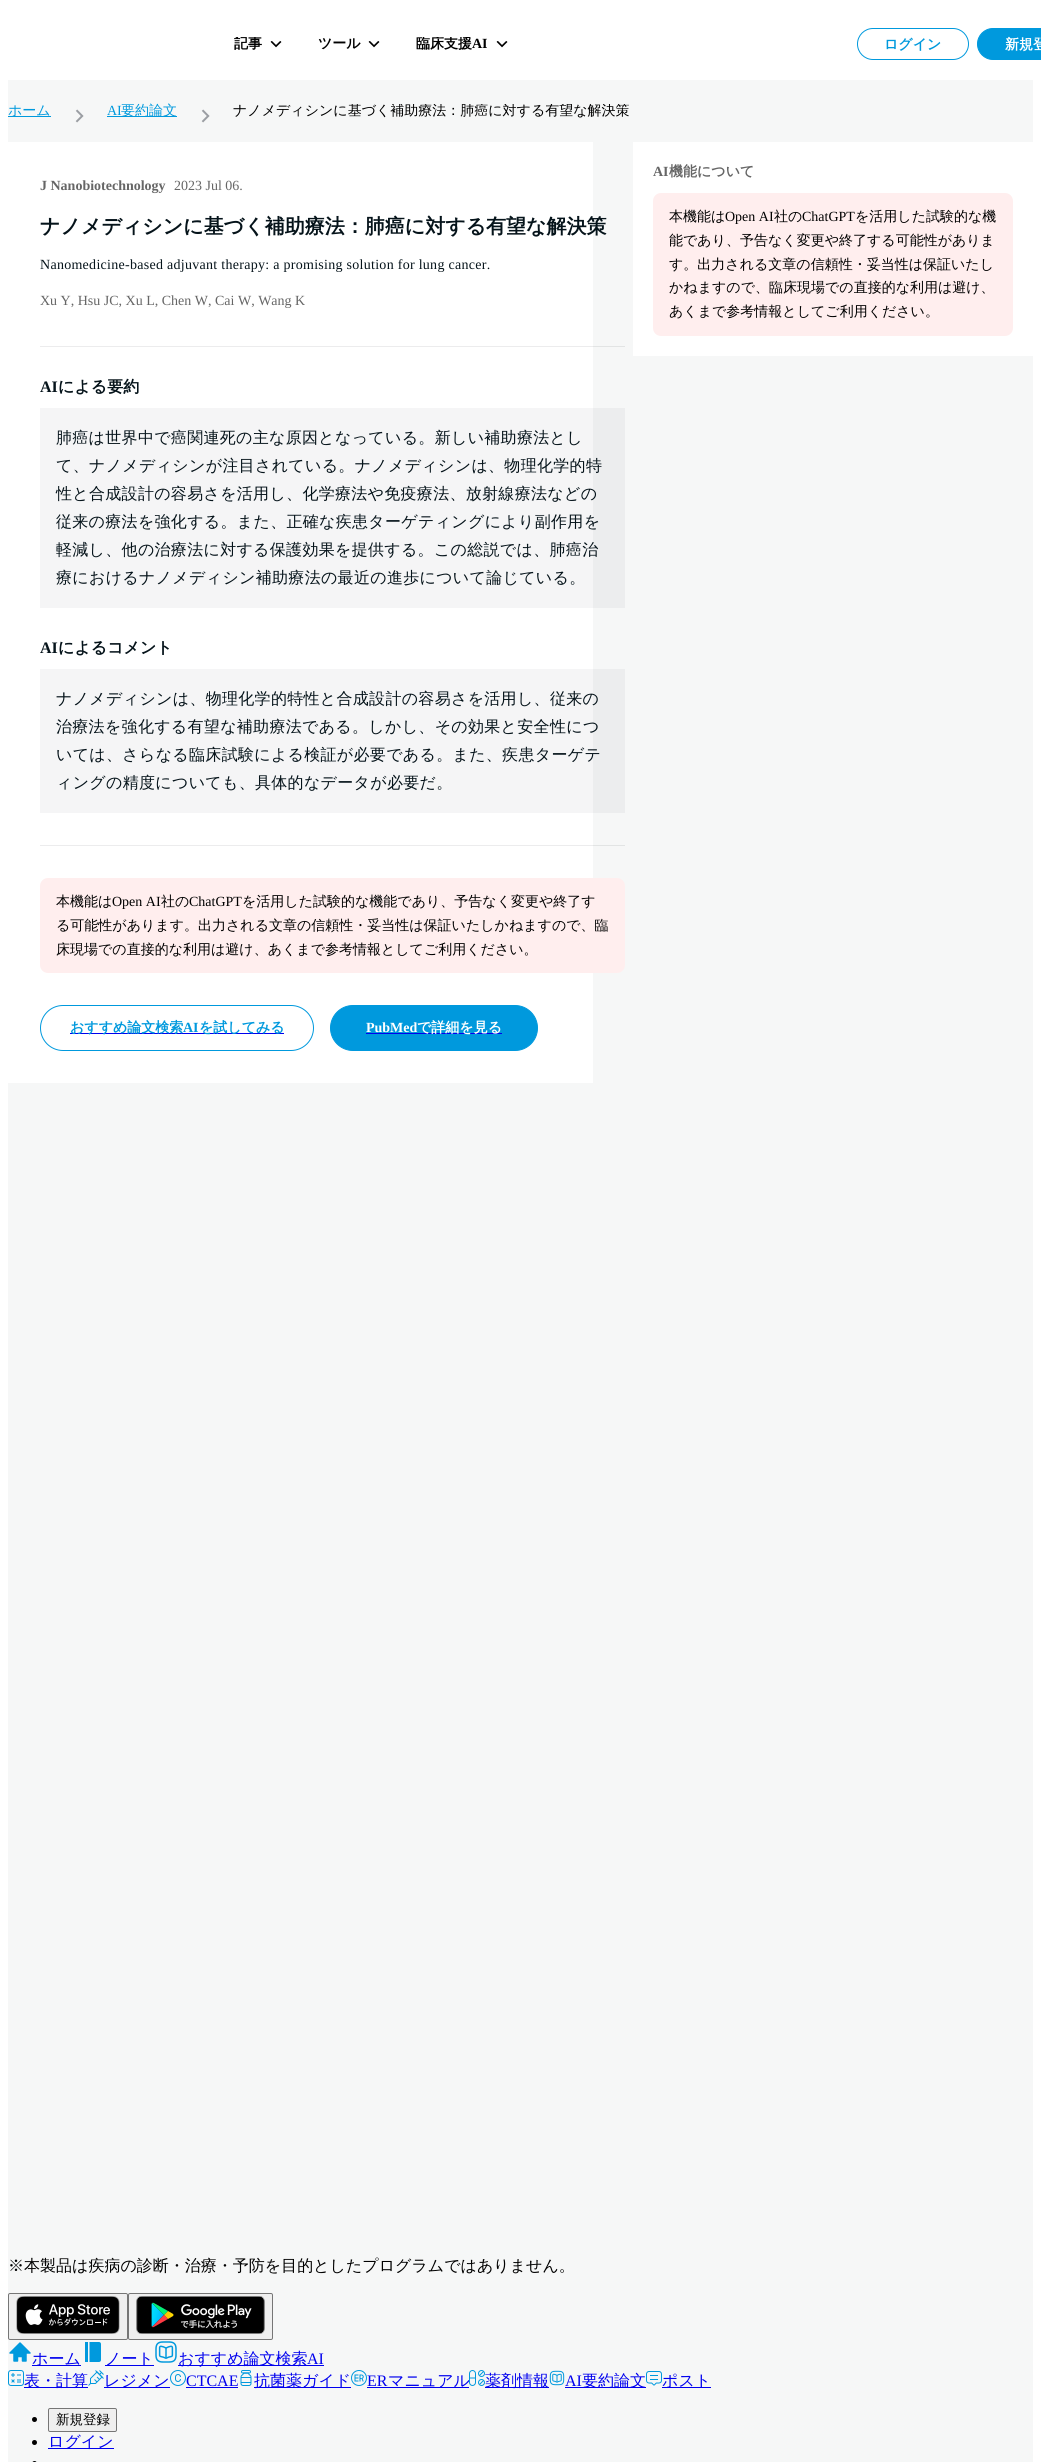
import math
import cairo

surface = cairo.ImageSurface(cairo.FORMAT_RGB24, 1041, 2462)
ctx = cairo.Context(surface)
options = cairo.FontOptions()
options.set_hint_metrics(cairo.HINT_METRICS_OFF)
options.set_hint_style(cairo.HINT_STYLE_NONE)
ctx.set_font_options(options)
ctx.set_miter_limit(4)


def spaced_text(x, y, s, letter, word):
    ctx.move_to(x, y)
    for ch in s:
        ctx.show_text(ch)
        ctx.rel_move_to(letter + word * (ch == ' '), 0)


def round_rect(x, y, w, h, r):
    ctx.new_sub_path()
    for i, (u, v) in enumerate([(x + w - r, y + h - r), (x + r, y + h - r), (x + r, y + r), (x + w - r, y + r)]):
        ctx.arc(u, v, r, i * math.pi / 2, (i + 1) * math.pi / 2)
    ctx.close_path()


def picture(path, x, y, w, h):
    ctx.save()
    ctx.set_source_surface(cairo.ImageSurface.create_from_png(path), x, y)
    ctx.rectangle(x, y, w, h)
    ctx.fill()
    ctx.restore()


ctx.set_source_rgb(1, 1, 1)
ctx.paint()
ctx.save()
ctx.rectangle(234, 37, 28, 14)
ctx.clip()
ctx.select_font_face("WenQuanYi Zen Hei", cairo.FONT_SLANT_NORMAL, cairo.FONT_WEIGHT_BOLD)
ctx.set_font_size(14)
ctx.set_source_rgb(0, 0, 0)
ctx.move_to(234, 48)
ctx.show_text("記事")
ctx.restore()
picture("img1.png", 270, 41, 12, 7)
ctx.select_font_face("WenQuanYi Zen Hei", cairo.FONT_SLANT_NORMAL, cairo.FONT_WEIGHT_BOLD)
ctx.set_font_size(14)
ctx.set_source_rgb(0, 0, 0)
ctx.move_to(318, 48)
ctx.show_text("ツール")
picture("img1.png", 368, 41, 12, 7)
ctx.save()
ctx.rectangle(416, 37, 72, 14)
ctx.clip()
ctx.move_to(416, 48)
ctx.show_text("臨床支援")
ctx.restore()
ctx.select_font_face("Liberation Serif", cairo.FONT_SLANT_NORMAL, cairo.FONT_WEIGHT_BOLD)
ctx.move_to(472, 48)
ctx.show_text("AI")
picture("img1.png", 496, 41, 12, 7)
round_rect(857.5, 28.5, 111, 31, 15.5)
ctx.set_source_rgb(0, 0.6, 0.867)
ctx.set_line_width(1)
ctx.stroke()
ctx.select_font_face("WenQuanYi Zen Hei", cairo.FONT_SLANT_NORMAL, cairo.FONT_WEIGHT_BOLD)
ctx.move_to(884, 49)
ctx.show_text("ログイン")
round_rect(977.5, 28.5, 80, 31, 15.5)
ctx.fill_preserve()
ctx.stroke()
ctx.set_source_rgb(1, 1, 1)
ctx.move_to(1005, 49)
ctx.show_text("新規登")
ctx.set_source_rgb(0.961, 0.965, 0.965)
ctx.rectangle(8, 80, 1025, 2382)
ctx.fill()
ctx.set_source_rgb(0.886, 0.894, 0.894)
ctx.rectangle(593, 845, 32, 1)
ctx.fill()
ctx.rectangle(593, 346, 32, 1)
ctx.fill()
ctx.set_source_rgb(0, 0.6, 0.867)
ctx.rectangle(8, 116, 43, 1)
ctx.fill()
ctx.select_font_face("WenQuanYi Zen Hei Medium")
ctx.move_to(8, 115)
ctx.show_text("ホーム")
picture("img2.png", 75, 109, 9, 14)
ctx.select_font_face("Liberation Serif")
ctx.move_to(107, 115)
ctx.show_text("AI")
ctx.rectangle(107, 116, 70, 1)
ctx.fill()
ctx.select_font_face("WenQuanYi Zen Hei Medium")
ctx.move_to(121, 115)
ctx.show_text("要約論文")
picture("img2.png", 201, 109, 9, 14)
ctx.save()
ctx.rectangle(233, 104, 397, 14)
ctx.clip()
ctx.set_source_rgb(0, 0, 0)
ctx.move_to(233, 115)
ctx.show_text("ナノメディシンに基づく補助療法：肺癌に対する有望な解決策")
ctx.restore()
ctx.set_source_rgb(1, 1, 1)
ctx.rectangle(8, 142, 585, 941)
ctx.fill()
ctx.set_source_rgb(0.922, 0.925, 0.929)
ctx.rectangle(40, 845, 553, 1)
ctx.fill()
ctx.rectangle(40, 346, 553, 1)
ctx.fill()
ctx.select_font_face("Liberation Serif", cairo.FONT_SLANT_NORMAL, cairo.FONT_WEIGHT_BOLD)
ctx.set_source_rgb(0.4, 0.4, 0.4)
ctx.move_to(40, 190)
ctx.show_text("J Nanobiotechnology")
ctx.select_font_face("Liberation Serif")
ctx.move_to(174, 190)
ctx.show_text("2023 Jul 06.")
ctx.select_font_face("WenQuanYi Zen Hei", cairo.FONT_SLANT_NORMAL, cairo.FONT_WEIGHT_BOLD)
ctx.set_font_size(20)
ctx.set_source_rgb(0.02, 0.075, 0.102)
ctx.move_to(40, 233)
ctx.show_text("ナノメディシンに基づく補助療法：肺癌に対する有望な解決策")
ctx.select_font_face("Liberation Serif")
ctx.set_font_size(14)
spaced_text(40, 269, "Nanomedicine-based adjuvant therapy: a promising solution for lung cancer.", 0.28, 0)
ctx.set_source_rgb(0.4, 0.4, 0.4)
ctx.move_to(40, 305)
ctx.show_text("Xu Y, Hsu JC, Xu L, Chen W, Cai W, Wang K")
ctx.select_font_face("Liberation Serif", cairo.FONT_SLANT_NORMAL, cairo.FONT_WEIGHT_BOLD)
ctx.set_font_size(16)
ctx.set_source_rgb(0.02, 0.075, 0.102)
ctx.move_to(40, 392)
ctx.show_text("AI")
ctx.select_font_face("WenQuanYi Zen Hei", cairo.FONT_SLANT_NORMAL, cairo.FONT_WEIGHT_BOLD)
ctx.move_to(58, 392)
ctx.show_text("による要約")
ctx.set_source_rgba(0.02, 0.075, 0.102, 0.04)
ctx.rectangle(40, 408, 585, 200)
ctx.fill()
ctx.select_font_face("WenQuanYi Zen Hei Medium")
ctx.set_source_rgb(0.02, 0.075, 0.102)
spaced_text(56, 443, "肺癌は世界中で癌関連死の主な原因となっている。新しい補助療法とし", 0.3, 0)
spaced_text(56, 471, "て、ナノメディシンが注目されている。ナノメディシンは、物理化学的特", 0.3, 0)
spaced_text(56, 499, "性と合成設計の容易さを活用し、化学療法や免疫療法、放射線療法などの", 0.3, 0)
spaced_text(56, 527, "従来の療法を強化する。また、正確な疾患ターゲティングにより副作用を", 0.3, 0)
spaced_text(56, 555, "軽減し、他の治療法に対する保護効果を提供する。この総説では、肺癌治", 0.3, 0)
spaced_text(56, 583, "療におけるナノメディシン補助療法の最近の進歩について論じている。", 0.3, 0)
ctx.select_font_face("Liberation Serif", cairo.FONT_SLANT_NORMAL, cairo.FONT_WEIGHT_BOLD)
ctx.move_to(40, 653)
ctx.show_text("AI")
ctx.select_font_face("WenQuanYi Zen Hei", cairo.FONT_SLANT_NORMAL, cairo.FONT_WEIGHT_BOLD)
ctx.move_to(58, 653)
ctx.show_text("によるコメント")
ctx.set_source_rgba(0.02, 0.075, 0.102, 0.04)
ctx.rectangle(40, 669, 585, 144)
ctx.fill()
ctx.select_font_face("WenQuanYi Zen Hei Medium")
ctx.set_source_rgb(0.02, 0.075, 0.102)
spaced_text(56, 704, "ナノメディシンは、物理化学的特性と合成設計の容易さを活用し、従来の", 0.3, 0)
spaced_text(56, 732, "治療法を強化する有望な補助療法である。しかし、その効果と安全性につ", 0.3, 0)
spaced_text(56, 760, "いては、さらなる臨床試験による検証が必要である。また、疾患ターゲテ", 0.3, 0)
spaced_text(56, 788, "ィングの精度についても、具体的なデータが必要だ。", 0.3, 0)
ctx.set_source_rgb(1, 0.933, 0.933)
round_rect(40, 878, 585, 95, 8)
ctx.fill()
ctx.set_font_size(14)
ctx.set_source_rgb(0, 0, 0)
ctx.move_to(56, 906)
ctx.show_text("本機能は")
ctx.select_font_face("Liberation Serif")
ctx.move_to(112, 906)
ctx.show_text("Open AI")
ctx.select_font_face("WenQuanYi Zen Hei Medium")
ctx.move_to(161, 906)
ctx.show_text("社の")
ctx.select_font_face("Liberation Serif")
ctx.move_to(189, 906)
ctx.show_text("ChatGPT")
ctx.select_font_face("WenQuanYi Zen Hei Medium")
ctx.move_to(242, 906)
ctx.show_text("を活用した試験的な機能であり、予告なく変更や終了す")
ctx.move_to(56, 930)
ctx.show_text("る可能性があります。出力される文章の信頼性・妥当性は保証いたしかねますので、臨")
ctx.move_to(56, 954)
ctx.show_text("床現場での直接的な利用は避け、あくまで参考情報としてご利用ください。")
round_rect(40.5, 1005.5, 273, 45, 22.5)
ctx.set_source_rgb(0, 0.6, 0.867)
ctx.stroke()
ctx.set_source_rgb(0, 0, 0.933)
ctx.rectangle(70, 1033, 214, 1)
ctx.fill()
ctx.select_font_face("WenQuanYi Zen Hei", cairo.FONT_SLANT_NORMAL, cairo.FONT_WEIGHT_BOLD)
ctx.set_source_rgb(0, 0.6, 0.867)
ctx.move_to(70, 1032)
ctx.show_text("おすすめ論文検索")
ctx.select_font_face("Liberation Serif", cairo.FONT_SLANT_NORMAL, cairo.FONT_WEIGHT_BOLD)
ctx.move_to(183, 1032)
ctx.show_text("AI")
ctx.select_font_face("WenQuanYi Zen Hei", cairo.FONT_SLANT_NORMAL, cairo.FONT_WEIGHT_BOLD)
ctx.move_to(199, 1032)
ctx.show_text("を試してみる")
round_rect(330.5, 1005.5, 207, 45, 22.5)
ctx.fill_preserve()
ctx.stroke()
ctx.select_font_face("Liberation Serif", cairo.FONT_SLANT_NORMAL, cairo.FONT_WEIGHT_BOLD)
ctx.set_source_rgb(1, 1, 1)
ctx.move_to(366, 1032)
ctx.show_text("PubMed")
ctx.set_source_rgb(0, 0, 0.933)
ctx.rectangle(366, 1033, 136, 1)
ctx.fill()
ctx.select_font_face("WenQuanYi Zen Hei", cairo.FONT_SLANT_NORMAL, cairo.FONT_WEIGHT_BOLD)
ctx.set_source_rgb(1, 1, 1)
ctx.move_to(417, 1032)
ctx.show_text("で詳細を見る")
ctx.rectangle(633, 142, 400, 214)
ctx.fill()
ctx.select_font_face("Liberation Serif", cairo.FONT_SLANT_NORMAL, cairo.FONT_WEIGHT_BOLD)
ctx.set_source_rgb(0.4, 0.4, 0.4)
ctx.move_to(653, 176)
ctx.show_text("AI")
ctx.select_font_face("WenQuanYi Zen Hei", cairo.FONT_SLANT_NORMAL, cairo.FONT_WEIGHT_BOLD)
ctx.move_to(669, 176)
ctx.show_text("機能について")
ctx.set_source_rgb(1, 0.933, 0.933)
round_rect(653, 193, 360, 143, 8)
ctx.fill()
ctx.select_font_face("WenQuanYi Zen Hei Medium")
ctx.set_source_rgb(0, 0, 0)
ctx.move_to(669, 221)
ctx.show_text("本機能は")
ctx.select_font_face("Liberation Serif")
ctx.move_to(725, 221)
ctx.show_text("Open AI")
ctx.select_font_face("WenQuanYi Zen Hei Medium")
ctx.move_to(774, 221)
ctx.show_text("社の")
ctx.select_font_face("Liberation Serif")
ctx.move_to(802, 221)
ctx.show_text("ChatGPT")
ctx.select_font_face("WenQuanYi Zen Hei Medium")
ctx.move_to(855, 221)
ctx.show_text("を活用した試験的な機")
ctx.move_to(669, 245)
ctx.show_text("能であり、予告なく変更や終了する可能性がありま")
ctx.move_to(669, 269)
ctx.show_text("す。出力される文章の信頼性・妥当性は保証いたし")
ctx.move_to(669, 292)
ctx.show_text("かねますので、臨床現場での直接的な利用は避け、")
ctx.move_to(669, 316)
ctx.show_text("あくまで参考情報としてご利用ください。")
ctx.set_font_size(16)
ctx.move_to(8, 2271)
ctx.show_text("※本製品は疾病の診断・治療・予防を目的としたプログラムではありません。")
ctx.set_source_rgb(0.937, 0.937, 0.937)
round_rect(8.5, 2293.5, 119, 46, 1.5)
ctx.fill_preserve()
ctx.set_source_rgb(0.463, 0.463, 0.463)
ctx.stroke()
picture("img3.png", 16, 2296, 104, 38)
ctx.set_source_rgb(0.937, 0.937, 0.937)
round_rect(128.5, 2293.5, 144, 46, 1.5)
ctx.fill_preserve()
ctx.set_source_rgb(0.463, 0.463, 0.463)
ctx.stroke()
picture("img4.png", 136, 2296, 129, 38)
picture("img5.png", 9, 2342, 22, 20)
ctx.set_source_rgb(0, 0, 0.933)
ctx.rectangle(32, 2365, 49, 1)
ctx.fill()
ctx.move_to(32, 2364)
ctx.show_text("ホーム")
picture("img6.png", 85, 2342, 16, 20)
ctx.rectangle(105, 2365, 49, 1)
ctx.fill()
ctx.move_to(105, 2364)
ctx.show_text("ノート")
picture("img7.png", 155, 2341, 22, 22)
ctx.rectangle(178, 2365, 146, 1)
ctx.fill()
ctx.move_to(178, 2364)
ctx.show_text("おすすめ論文検索")
ctx.select_font_face("Liberation Serif")
ctx.move_to(307, 2364)
ctx.show_text("AI")
picture("img8.png", 8, 2370, 16, 16)
ctx.rectangle(24, 2387, 64, 1)
ctx.fill()
ctx.select_font_face("WenQuanYi Zen Hei Medium")
ctx.move_to(24, 2386)
ctx.show_text("表・計算")
picture("img9.png", 88, 2370, 16, 16)
ctx.rectangle(104, 2387, 66, 1)
ctx.fill()
ctx.move_to(104, 2386)
ctx.show_text("レジメン")
picture("img10.png", 170, 2370, 16, 16)
ctx.select_font_face("Liberation Serif")
ctx.move_to(186, 2386)
ctx.show_text("CTCAE")
ctx.rectangle(186, 2387, 52, 1)
ctx.fill()
picture("img11.png", 240, 2370, 12, 16)
ctx.rectangle(254, 2387, 97, 1)
ctx.fill()
ctx.select_font_face("WenQuanYi Zen Hei Medium")
ctx.move_to(254, 2386)
ctx.show_text("抗菌薬ガイド")
picture("img12.png", 351, 2370, 16, 16)
ctx.select_font_face("Liberation Serif")
ctx.move_to(367, 2386)
ctx.show_text("ER")
ctx.rectangle(367, 2387, 102, 1)
ctx.fill()
ctx.select_font_face("WenQuanYi Zen Hei Medium")
ctx.move_to(388, 2386)
ctx.show_text("マニュアル")
picture("img13.png", 469, 2370, 16, 16)
ctx.rectangle(485, 2387, 64, 1)
ctx.fill()
ctx.move_to(485, 2386)
ctx.show_text("薬剤情報")
picture("img14.png", 549, 2370, 16, 16)
ctx.select_font_face("Liberation Serif")
ctx.move_to(565, 2386)
ctx.show_text("AI")
ctx.rectangle(565, 2387, 81, 1)
ctx.fill()
ctx.select_font_face("WenQuanYi Zen Hei Medium")
ctx.move_to(582, 2386)
ctx.show_text("要約論文")
picture("img15.png", 646, 2371, 16, 15)
ctx.rectangle(662, 2387, 49, 1)
ctx.fill()
ctx.move_to(662, 2386)
ctx.show_text("ポスト")
ctx.set_source_rgb(0, 0, 0)
ctx.new_path()
ctx.arc(34.5, 2419.5, 2.5, 0, 2 * math.pi)
ctx.fill()
ctx.set_source_rgb(0.937, 0.937, 0.937)
round_rect(48.5, 2408.5, 68, 23, 1.5)
ctx.fill_preserve()
ctx.set_source_rgb(0.463, 0.463, 0.463)
ctx.stroke()
ctx.set_font_size(13.5)
ctx.set_source_rgb(0, 0, 0)
ctx.move_to(56, 2424)
ctx.show_text("新規登録")
ctx.new_path()
ctx.arc(34.5, 2442.5, 2.5, 0, 2 * math.pi)
ctx.fill()
ctx.set_source_rgb(0, 0, 0.933)
ctx.rectangle(48, 2448, 66, 1)
ctx.fill()
ctx.set_font_size(16)
ctx.move_to(48, 2447)
ctx.show_text("ログイン")
ctx.set_source_rgb(0, 0, 0)
round_rect(32, 2461, 5, 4, 2.5)
ctx.fill()
surface.write_to_png("page.png")
